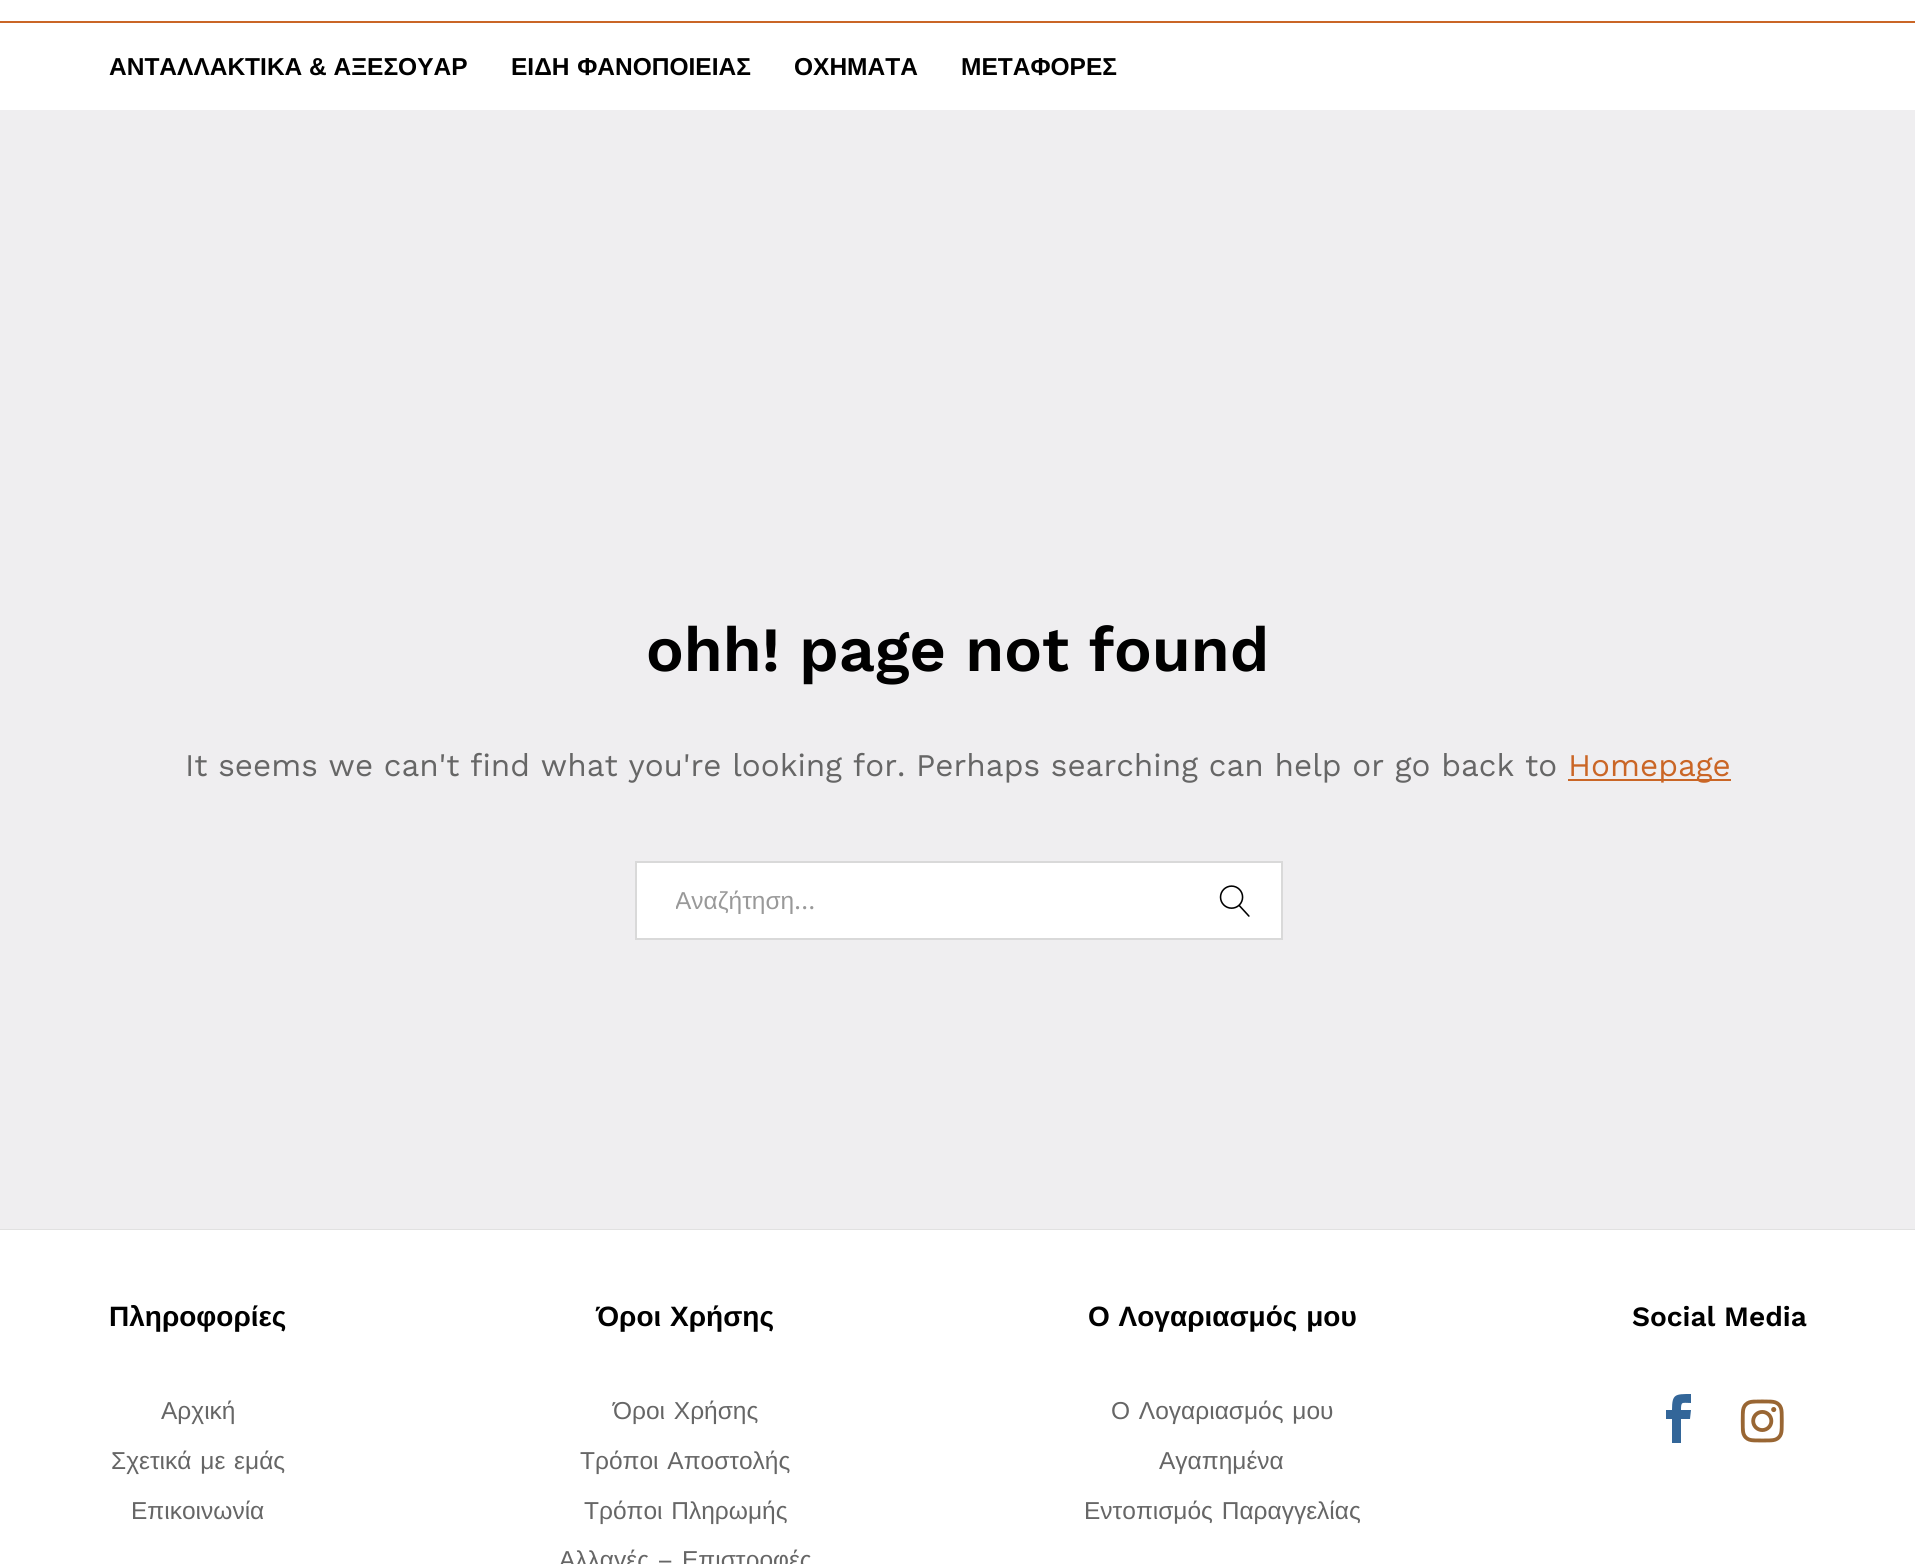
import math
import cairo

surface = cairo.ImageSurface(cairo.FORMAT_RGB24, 1915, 1564)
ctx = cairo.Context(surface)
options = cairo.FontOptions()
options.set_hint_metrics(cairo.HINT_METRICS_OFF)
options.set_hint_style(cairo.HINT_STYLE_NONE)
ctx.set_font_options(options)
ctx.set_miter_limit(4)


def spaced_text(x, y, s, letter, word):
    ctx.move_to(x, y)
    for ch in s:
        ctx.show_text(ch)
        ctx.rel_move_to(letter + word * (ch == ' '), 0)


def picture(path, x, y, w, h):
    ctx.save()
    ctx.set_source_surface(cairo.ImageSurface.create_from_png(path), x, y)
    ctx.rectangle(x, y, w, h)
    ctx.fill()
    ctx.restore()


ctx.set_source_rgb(1, 1, 1)
ctx.paint()
ctx.set_source_rgb(0.792, 0.4, 0.149)
ctx.rectangle(0, 21, 1915, 2)
ctx.fill()
ctx.select_font_face("Liberation Sans", cairo.FONT_SLANT_NORMAL, cairo.FONT_WEIGHT_BOLD)
ctx.set_font_size(24.5)
ctx.set_source_rgb(0, 0, 0)
ctx.move_to(109, 75)
ctx.show_text("ΑΝΤΑΛΛΑΚΤΙΚΑ & ΑΞΕΣΟΥΑΡ")
spaced_text(511, 75, "ΕΙΔΗ ΦΑΝΟΠΟΙΕΙΑΣ", 0, 1)
ctx.move_to(794, 75)
ctx.show_text("ΟΧΗΜΑΤΑ")
ctx.move_to(961, 75)
ctx.show_text("ΜΕΤΑΦΟΡΕΣ")
ctx.set_source_rgb(0.937, 0.933, 0.941)
ctx.rectangle(0, 110, 1915, 1119)
ctx.fill()
ctx.select_font_face("Work Sans SemiBold")
ctx.set_font_size(63)
ctx.set_source_rgb(0, 0, 0)
ctx.move_to(646, 671)
ctx.show_text("ohh! page not found")
ctx.select_font_face("Work Sans")
ctx.set_font_size(31.5)
ctx.set_source_rgb(0.4, 0.4, 0.4)
ctx.move_to(185, 776)
ctx.show_text("It seems we can't find what you're looking for. Perhaps searching can help or go back to")
ctx.set_source_rgb(0.792, 0.4, 0.149)
ctx.rectangle(1568, 779, 163, 2)
ctx.fill()
ctx.move_to(1568, 776)
ctx.show_text("Homepage")
ctx.set_source_rgb(1, 1, 1)
ctx.rectangle(636, 862, 646, 77)
ctx.fill_preserve()
ctx.set_source_rgb(0.851, 0.851, 0.851)
ctx.stroke()
ctx.save()
ctx.rectangle(676, 886, 560, 28)
ctx.clip()
ctx.select_font_face("Liberation Sans")
ctx.set_font_size(24.5)
ctx.set_source_rgb(0.6, 0.6, 0.6)
ctx.move_to(675, 909)
ctx.show_text("Αναζήτηση")
ctx.restore()
ctx.set_font_size(24.5)
ctx.set_source_rgb(0.6, 0.6, 0.6)
ctx.move_to(794, 909)
ctx.show_text("…")
picture("img1.png", 1219, 885, 31, 32)
ctx.set_source_rgb(0.882, 0.882, 0.882)
ctx.rectangle(0, 1229, 1915, 1)
ctx.fill()
ctx.select_font_face("Liberation Sans", cairo.FONT_SLANT_NORMAL, cairo.FONT_WEIGHT_BOLD)
ctx.set_font_size(28)
ctx.set_source_rgb(0, 0, 0)
ctx.move_to(109, 1326)
ctx.show_text("Πληροφορίες")
ctx.select_font_face("Liberation Sans")
ctx.set_font_size(24.5)
ctx.set_source_rgb(0.4, 0.4, 0.4)
ctx.move_to(161, 1419)
ctx.show_text("Αρχική")
spaced_text(111, 1469, "Σχετικά με εμάς", 0, 2)
ctx.move_to(131, 1519)
ctx.show_text("Επικοινωνία")
ctx.select_font_face("Liberation Sans", cairo.FONT_SLANT_NORMAL, cairo.FONT_WEIGHT_BOLD)
ctx.set_font_size(28)
ctx.set_source_rgb(0, 0, 0)
spaced_text(596, 1326, "Όροι Χρήσης", 0, 1)
ctx.select_font_face("Liberation Sans")
ctx.set_font_size(24.5)
ctx.set_source_rgb(0.4, 0.4, 0.4)
spaced_text(613, 1419, "Όροι Χρήσης", 0, 2)
spaced_text(580, 1469, "Τρόποι Αποστολής", 0, 2)
spaced_text(584, 1519, "Τρόποι Πληρωμής", 0, 2)
ctx.move_to(559, 1568)
ctx.show_text("Αλλαγές")
ctx.select_font_face("Work Sans")
ctx.move_to(657, 1568)
ctx.show_text("–")
ctx.select_font_face("Liberation Sans")
ctx.move_to(682, 1568)
ctx.show_text("Επιστροφές")
ctx.select_font_face("Liberation Sans", cairo.FONT_SLANT_NORMAL, cairo.FONT_WEIGHT_BOLD)
ctx.set_font_size(28)
ctx.set_source_rgb(0, 0, 0)
spaced_text(1088, 1326, "Ο Λογαριασμός μου", 0, 1)
ctx.select_font_face("Liberation Sans")
ctx.set_font_size(24.5)
ctx.set_source_rgb(0.4, 0.4, 0.4)
spaced_text(1111, 1419, "Ο Λογαριασμός μου", 0, 2)
ctx.move_to(1159, 1469)
ctx.show_text("Αγαπημένα")
spaced_text(1084, 1519, "Εντοπισμός Παραγγελίας", 0, 2)
ctx.select_font_face("Work Sans SemiBold")
ctx.set_font_size(28)
ctx.set_source_rgb(0, 0, 0)
ctx.move_to(1632, 1326)
ctx.show_text("Social Media")
ctx.set_source_rgb(0.2, 0.4, 0.6)
ctx.new_path()
ctx.move_to(1672, 1443)
ctx.line_to(1681, 1443)
ctx.line_to(1681, 1419)
ctx.line_to(1690, 1419)
ctx.line_to(1691, 1410)
ctx.line_to(1681, 1410)
ctx.curve_to(1681, 1401, 1682, 1403, 1691, 1403)
ctx.line_to(1691, 1394)
ctx.curve_to(1675, 1394, 1672, 1394, 1672, 1410)
ctx.line_to(1666, 1410)
ctx.line_to(1666, 1419)
ctx.line_to(1672, 1419)
ctx.close_path()
ctx.fill()
picture("img2.png", 1740, 1399, 44, 44)
surface.write_to_png("page.png")
